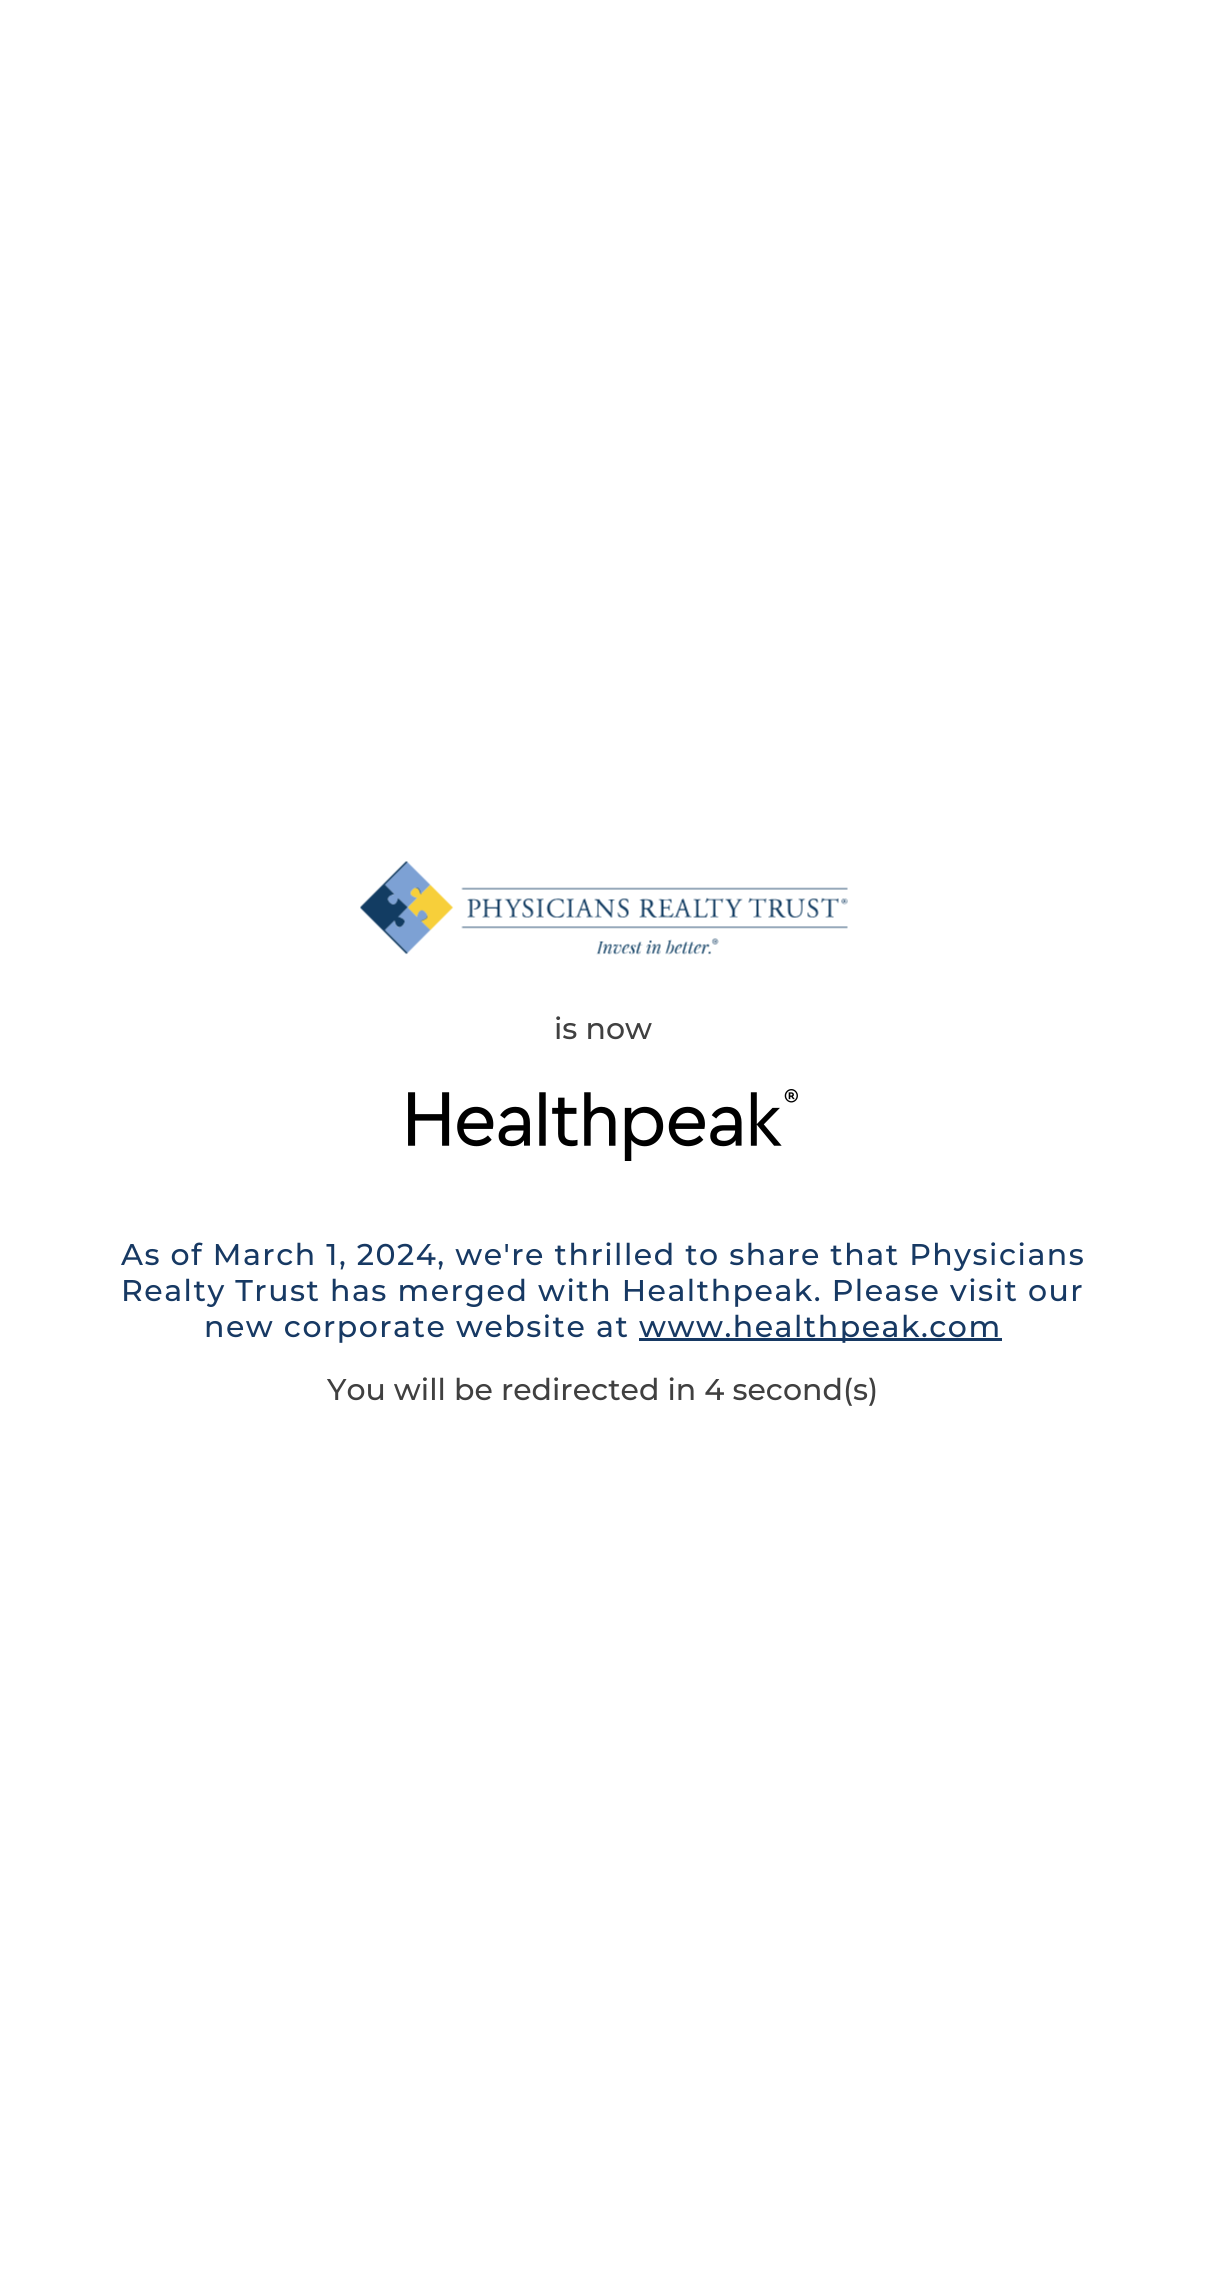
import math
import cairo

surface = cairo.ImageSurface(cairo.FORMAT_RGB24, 1206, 2272)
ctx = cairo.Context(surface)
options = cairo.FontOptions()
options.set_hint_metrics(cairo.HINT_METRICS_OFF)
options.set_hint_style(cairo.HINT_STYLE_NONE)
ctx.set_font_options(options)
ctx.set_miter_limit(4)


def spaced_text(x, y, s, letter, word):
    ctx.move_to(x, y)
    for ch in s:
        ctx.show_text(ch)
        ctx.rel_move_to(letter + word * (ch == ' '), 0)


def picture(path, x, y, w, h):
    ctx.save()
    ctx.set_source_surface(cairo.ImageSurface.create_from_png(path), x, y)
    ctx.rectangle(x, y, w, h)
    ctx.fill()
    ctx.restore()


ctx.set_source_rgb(1, 1, 1)
ctx.paint()
picture("img1.png", 360, 861, 488, 94)
ctx.select_font_face("Montserrat Medium")
ctx.set_font_size(30)
ctx.set_source_rgb(0.251, 0.251, 0.251)
ctx.move_to(554, 1039)
ctx.show_text("is now")
picture("img2.png", 408, 1089, 390, 72)
ctx.set_source_rgb(0.09, 0.224, 0.388)
spaced_text(121, 1265, "As of March 1, 2024, we're thrilled to share that Physicians", 1.5, 0)
spaced_text(121, 1301, "Realty Trust has merged with Healthpeak. Please visit our", 1.5, 0)
spaced_text(204, 1337, "new corporate website at", 1.5, 0)
ctx.rectangle(639, 1338, 363, 3)
ctx.fill()
spaced_text(639, 1337, "www.healthpeak.com", 1.5, 0)
ctx.set_source_rgb(0.251, 0.251, 0.251)
ctx.move_to(327, 1400)
ctx.show_text("You will be redirected in 4 second(s)")
surface.write_to_png("page.png")
